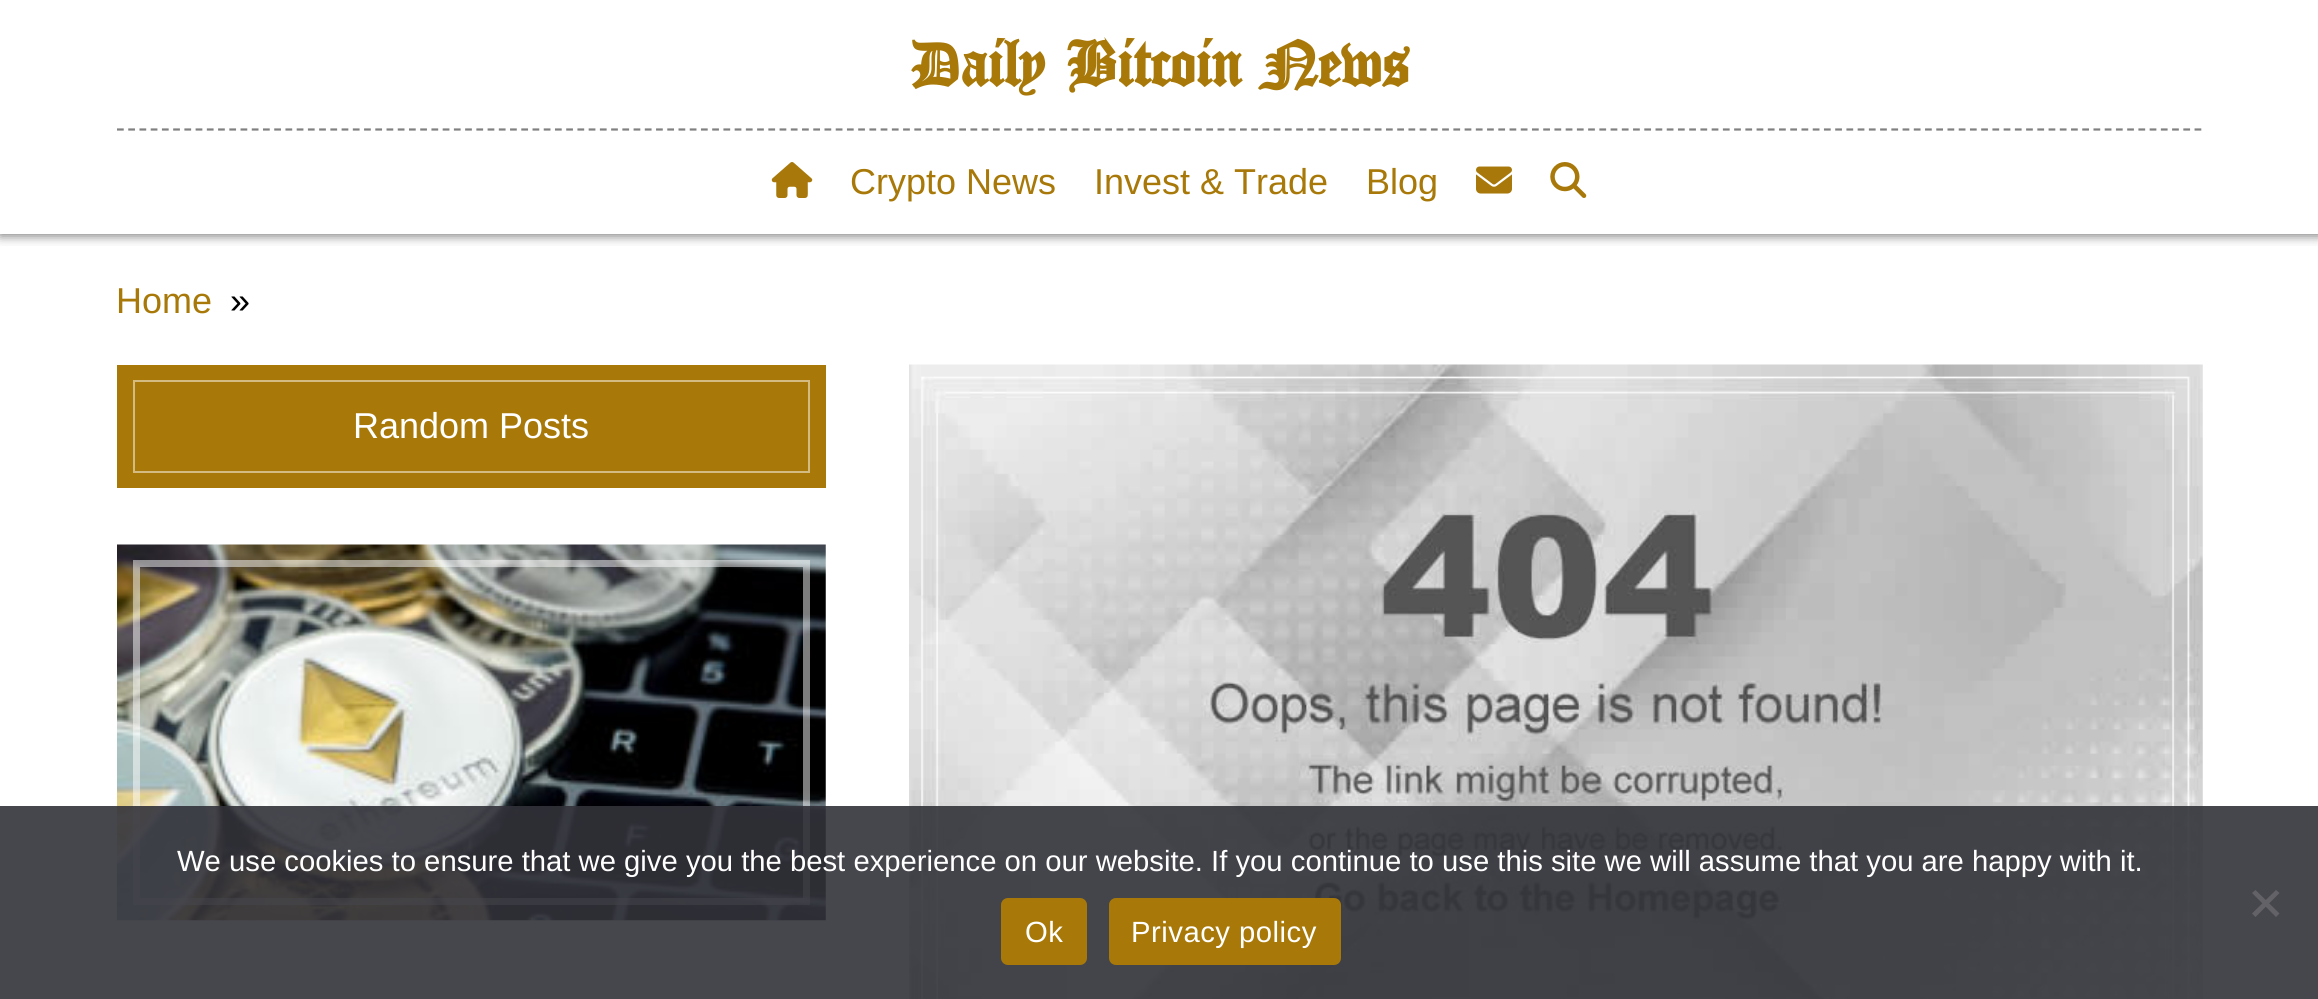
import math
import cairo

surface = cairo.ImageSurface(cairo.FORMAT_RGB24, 2318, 999)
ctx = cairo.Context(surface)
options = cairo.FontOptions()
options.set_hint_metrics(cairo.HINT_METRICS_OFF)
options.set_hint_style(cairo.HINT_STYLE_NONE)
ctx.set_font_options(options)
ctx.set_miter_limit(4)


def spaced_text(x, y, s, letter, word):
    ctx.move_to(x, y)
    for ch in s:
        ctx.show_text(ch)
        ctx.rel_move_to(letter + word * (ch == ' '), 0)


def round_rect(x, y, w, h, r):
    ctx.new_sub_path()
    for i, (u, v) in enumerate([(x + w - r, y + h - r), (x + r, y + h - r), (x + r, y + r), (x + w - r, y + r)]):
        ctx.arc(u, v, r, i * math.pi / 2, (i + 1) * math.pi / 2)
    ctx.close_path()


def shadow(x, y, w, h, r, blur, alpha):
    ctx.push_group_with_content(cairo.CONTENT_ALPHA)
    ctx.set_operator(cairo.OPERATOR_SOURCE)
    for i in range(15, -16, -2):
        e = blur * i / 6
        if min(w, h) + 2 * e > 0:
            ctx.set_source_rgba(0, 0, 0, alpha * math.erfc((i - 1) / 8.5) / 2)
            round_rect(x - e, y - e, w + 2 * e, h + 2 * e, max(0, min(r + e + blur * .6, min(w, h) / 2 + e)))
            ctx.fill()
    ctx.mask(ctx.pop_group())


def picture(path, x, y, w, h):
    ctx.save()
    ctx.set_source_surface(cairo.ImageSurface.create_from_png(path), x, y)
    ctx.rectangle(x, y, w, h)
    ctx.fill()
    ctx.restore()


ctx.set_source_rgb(1, 1, 1)
ctx.paint()
ctx.save()
ctx.rectangle(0, 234, 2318, 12)
ctx.clip()
ctx.set_source_rgb(0, 0, 0)
shadow(0, 2, 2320, 234, 0, 5.5, 0.51)
ctx.restore()
ctx.select_font_face("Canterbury", cairo.FONT_SLANT_NORMAL, cairo.FONT_WEIGHT_BOLD)
ctx.set_font_size(66.5)
ctx.set_source_rgb(0.659, 0.475, 0.039)
ctx.move_to(911, 86)
ctx.show_text("Daily Bitcoin News")
ctx.new_path()
ctx.move_to(117, 129.5)
ctx.line_to(2203, 129.5)
ctx.set_source_rgb(0.502, 0.502, 0.502)
ctx.set_line_width(2.2)
ctx.set_dash([6.75, 4.48])
ctx.stroke()
picture("img1.png", 771, 162, 42, 36)
ctx.select_font_face("Liberation Sans")
ctx.set_font_size(36)
ctx.set_source_rgb(0.659, 0.475, 0.039)
ctx.move_to(850, 194)
ctx.show_text("Crypto News")
ctx.move_to(1094, 194)
ctx.show_text("Invest & Trade")
ctx.move_to(1366, 194)
ctx.show_text("Blog")
picture("img2.png", 1476, 166, 36, 28)
picture("img3.png", 1550, 162, 37, 36)
ctx.move_to(116, 313)
ctx.show_text("Home")
ctx.set_source_rgb(0, 0, 0)
ctx.move_to(230, 313)
ctx.show_text("»")
ctx.set_source_rgb(0.659, 0.475, 0.039)
ctx.rectangle(117, 365, 709, 123)
ctx.fill()
ctx.rectangle(134, 381, 675, 91)
ctx.set_source_rgb(0.827, 0.733, 0.51)
ctx.set_line_width(2)
ctx.set_dash([])
ctx.stroke()
ctx.set_source_rgb(1, 1, 1)
ctx.move_to(353, 438)
ctx.show_text("Random Posts")
picture("img4.png", 117, 544, 709, 377)
ctx.rectangle(136.5, 563.5, 670, 338)
ctx.set_source_rgba(1, 1, 1, 0.49)
ctx.set_line_width(7)
ctx.stroke()
picture("img5.png", 909, 364, 1294, 635)
ctx.set_source_rgba(0.196, 0.196, 0.227, 0.9)
ctx.rectangle(0, 806, 2318, 193)
ctx.fill()
ctx.set_font_size(29.25)
ctx.set_source_rgb(1, 1, 1)
ctx.move_to(177, 871)
ctx.show_text("We use cookies to ensure that we give you the best experience on our website. If you continue to use this site we will assume that you are happy with it.")
ctx.set_source_rgb(0.388, 0.388, 0.404)
ctx.new_path()
ctx.move_to(2276, 890)
ctx.line_to(2279.5, 893)
ctx.line_to(2255.5, 917)
ctx.line_to(2252, 913.5)
ctx.close_path()
ctx.fill()
ctx.new_path()
ctx.move_to(2252, 893)
ctx.line_to(2255.5, 890)
ctx.line_to(2279.5, 913.5)
ctx.line_to(2276, 917)
ctx.close_path()
ctx.fill()
ctx.set_source_rgb(0.659, 0.475, 0.039)
round_rect(1001, 898, 86, 67, 7)
ctx.fill()
ctx.set_source_rgb(1, 1, 1)
spaced_text(1025, 942, "Ok", 0.5, 0)
ctx.set_source_rgb(0.659, 0.475, 0.039)
round_rect(1109, 898, 232, 67, 7)
ctx.fill()
ctx.set_source_rgb(1, 1, 1)
spaced_text(1131, 942, "Privacy policy", 0.5, 0)
surface.write_to_png("page.png")
